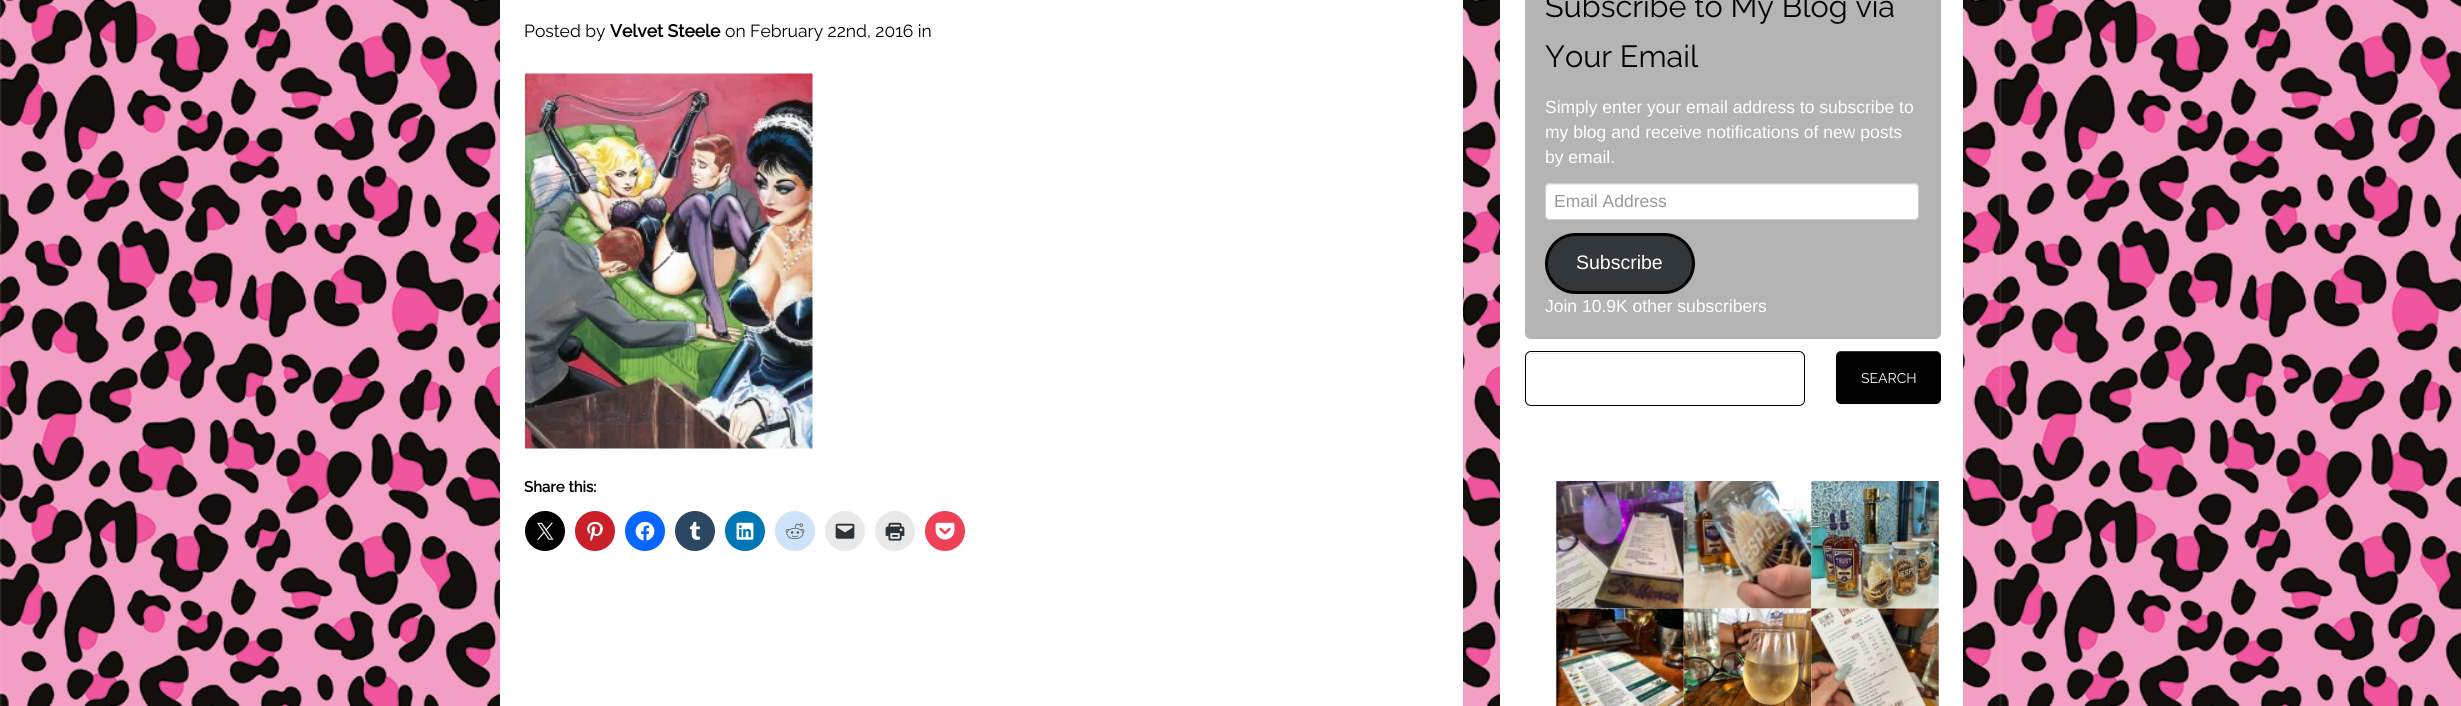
import math
import cairo

surface = cairo.ImageSurface(cairo.FORMAT_RGB24, 2461, 706)
ctx = cairo.Context(surface)
options = cairo.FontOptions()
options.set_hint_metrics(cairo.HINT_METRICS_OFF)
options.set_hint_style(cairo.HINT_STYLE_NONE)
ctx.set_font_options(options)
ctx.set_miter_limit(4)


def round_rect(x, y, w, h, r):
    ctx.new_sub_path()
    for i, (u, v) in enumerate([(x + w - r, y + h - r), (x + r, y + h - r), (x + r, y + r), (x + w - r, y + r)]):
        ctx.arc(u, v, r, i * math.pi / 2, (i + 1) * math.pi / 2)
    ctx.close_path()


def shadow(x, y, w, h, r, blur, alpha):
    ctx.push_group_with_content(cairo.CONTENT_ALPHA)
    ctx.set_operator(cairo.OPERATOR_SOURCE)
    for i in range(15, -16, -2):
        e = blur * i / 6
        if min(w, h) + 2 * e > 0:
            ctx.set_source_rgba(0, 0, 0, alpha * math.erfc((i - 1) / 8.5) / 2)
            round_rect(x - e, y - e, w + 2 * e, h + 2 * e, max(0, min(r + e + blur * .6, min(w, h) / 2 + e)))
            ctx.fill()
    ctx.mask(ctx.pop_group())


def picture(path, x, y, w, h):
    ctx.save()
    ctx.set_source_surface(cairo.ImageSurface.create_from_png(path), x, y)
    ctx.rectangle(x, y, w, h)
    ctx.fill()
    ctx.restore()


ctx.set_source_rgb(1, 1, 1)
ctx.paint()
picture("img1.png", 0, 0, 2461, 706)
ctx.set_source_rgb(1, 1, 1)
ctx.rectangle(500, 0, 963, 706)
ctx.fill()
ctx.select_font_face("Raleway")
ctx.set_font_size(17.5)
ctx.set_source_rgb(0, 0, 0)
ctx.move_to(524, 37)
ctx.show_text("Posted by")
ctx.select_font_face("Raleway", cairo.FONT_SLANT_NORMAL, cairo.FONT_WEIGHT_BOLD)
ctx.move_to(610, 37)
ctx.show_text("Velvet Steele")
ctx.select_font_face("Raleway")
ctx.move_to(725, 37)
ctx.show_text("on February 22nd, 2016 in")
picture("img2.png", 525, 73, 288, 376)
ctx.select_font_face("Raleway", cairo.FONT_SLANT_NORMAL, cairo.FONT_WEIGHT_BOLD)
ctx.set_font_size(15)
ctx.move_to(524, 492)
ctx.show_text("Share this:")
ctx.new_path()
ctx.arc(545, 531, 20, 0, 2 * math.pi)
ctx.fill()
picture("img3.png", 537, 522, 17, 18)
ctx.set_source_rgb(0.792, 0.122, 0.153)
ctx.arc(595, 531, 20, 0, 2 * math.pi)
ctx.fill()
picture("img4.png", 587, 521, 16, 21)
ctx.set_source_rgb(0.031, 0.4, 1)
ctx.arc(645, 531, 20, 0, 2 * math.pi)
ctx.fill()
picture("img5.png", 635, 521, 20, 20)
ctx.set_source_rgb(0.173, 0.278, 0.384)
ctx.arc(695, 531, 20, 0, 2 * math.pi)
ctx.fill()
picture("img6.png", 689, 521, 12, 19)
ctx.set_source_rgb(0, 0.467, 0.71)
ctx.arc(745, 531, 20, 0, 2 * math.pi)
ctx.fill()
picture("img7.png", 736, 522, 18, 18)
ctx.set_source_rgb(0.808, 0.89, 0.973)
ctx.arc(795, 531, 20, 0, 2 * math.pi)
ctx.fill()
picture("img8.png", 785, 523, 20, 17)
ctx.set_source_rgb(0.914, 0.914, 0.914)
ctx.arc(845, 531, 20, 0, 2 * math.pi)
ctx.fill()
picture("img9.png", 835, 523, 20, 16)
ctx.arc(895, 531, 20, 0, 2 * math.pi)
ctx.fill()
picture("img10.png", 885, 522, 20, 19)
ctx.set_source_rgb(0.933, 0.251, 0.337)
ctx.arc(945, 531, 20, 0, 2 * math.pi)
ctx.fill()
picture("img11.png", 935, 522, 20, 18)
ctx.set_source_rgb(1, 1, 1)
ctx.rectangle(1500, 0, 463, 706)
ctx.fill()
ctx.set_source_rgb(0.706, 0.706, 0.706)
round_rect(1525, -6, 416, 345, 6)
ctx.fill()
ctx.select_font_face("Raleway")
ctx.set_font_size(30.6)
ctx.set_source_rgb(0, 0, 0)
ctx.move_to(1545, 17)
ctx.show_text("Subscribe to My Blog via")
ctx.move_to(1545, 67)
ctx.show_text("Your Email")
ctx.select_font_face("Liberation Sans")
ctx.set_font_size(17.5)
ctx.set_source_rgb(1, 1, 1)
ctx.move_to(1545, 113)
ctx.show_text("Simply enter your email address to subscribe to")
ctx.move_to(1545, 138)
ctx.show_text("my blog and receive notifications of new posts")
ctx.move_to(1545, 163)
ctx.show_text("by email.")
round_rect(1545, 183, 374, 37, 5)
ctx.fill()
ctx.set_source_rgb(0.925, 0.925, 0.925)
ctx.new_path()
ctx.move_to(1550, 185)
ctx.line_to(1914, 185)
ctx.curve_to(1916, 185, 1918, 187, 1918, 189)
ctx.curve_to(1918, 186, 1917, 184, 1914, 184)
ctx.line_to(1550, 184)
ctx.curve_to(1547, 184, 1546, 186, 1546, 189)
ctx.curve_to(1546, 187, 1548, 185, 1550, 185)
ctx.close_path()
ctx.fill()
round_rect(1545.5, 183.5, 373, 36, 4.5)
ctx.set_source_rgb(0.8, 0.8, 0.8)
ctx.set_line_width(1)
ctx.stroke()
ctx.set_source_rgb(0.6, 0.6, 0.6)
ctx.move_to(1554, 207)
ctx.show_text("Email Address")
ctx.set_source_rgb(0.196, 0.216, 0.235)
round_rect(1546.5, 234.5, 147, 58, 29)
ctx.fill_preserve()
ctx.set_source_rgb(0, 0, 0)
ctx.set_line_width(3)
ctx.stroke()
ctx.set_font_size(19.5)
ctx.set_source_rgb(1, 1, 1)
ctx.move_to(1576, 269)
ctx.show_text("Subscribe")
ctx.set_font_size(17.5)
ctx.move_to(1545, 312)
ctx.show_text("Join 10.9K other subscribers")
ctx.set_source_rgb(0.925, 0.925, 0.925)
ctx.new_path()
ctx.move_to(1531, 354)
ctx.line_to(1799, 354)
ctx.curve_to(1802, 354, 1804, 356, 1804, 359)
ctx.line_to(1804, 358)
ctx.curve_to(1804, 355, 1802, 353, 1799, 353)
ctx.line_to(1531, 353)
ctx.curve_to(1528, 353, 1526, 355, 1526, 358)
ctx.line_to(1526, 359)
ctx.curve_to(1526, 356, 1528, 354, 1531, 354)
ctx.close_path()
ctx.fill()
round_rect(1525.5, 351.5, 279, 54, 5.5)
ctx.set_source_rgb(0, 0, 0)
ctx.set_line_width(1)
ctx.stroke()
ctx.set_source_rgb(0, 0, 0)
shadow(1836, 353, 105, 52, 5, 1, 0.05)
ctx.set_source_rgb(0, 0, 0)
round_rect(1836, 351, 105, 53, 5)
ctx.fill()
ctx.set_source_rgba(1, 1, 1, 0.2)
ctx.new_path()
ctx.move_to(1841, 352)
ctx.line_to(1936, 352)
ctx.curve_to(1939, 352, 1941, 355, 1941, 358)
ctx.line_to(1941, 356)
ctx.curve_to(1941, 353, 1939, 351, 1936, 351)
ctx.line_to(1841, 351)
ctx.curve_to(1838, 351, 1836, 353, 1836, 356)
ctx.line_to(1836, 358)
ctx.curve_to(1836, 355, 1838, 352, 1841, 352)
ctx.close_path()
ctx.fill()
ctx.select_font_face("Raleway")
ctx.set_font_size(14)
ctx.set_source_rgb(1, 1, 1)
ctx.move_to(1861, 383)
ctx.show_text("SEARCH")
picture("img12.png", 1556, 481, 128, 128)
picture("img13.png", 1683, 481, 129, 128)
picture("img14.png", 1779, 494, 21, 22)
picture("img15.png", 1811, 481, 128, 128)
picture("img16.png", 1556, 608, 128, 98)
picture("img17.png", 1683, 608, 129, 98)
picture("img18.png", 1811, 608, 128, 98)
surface.write_to_png("page.png")
